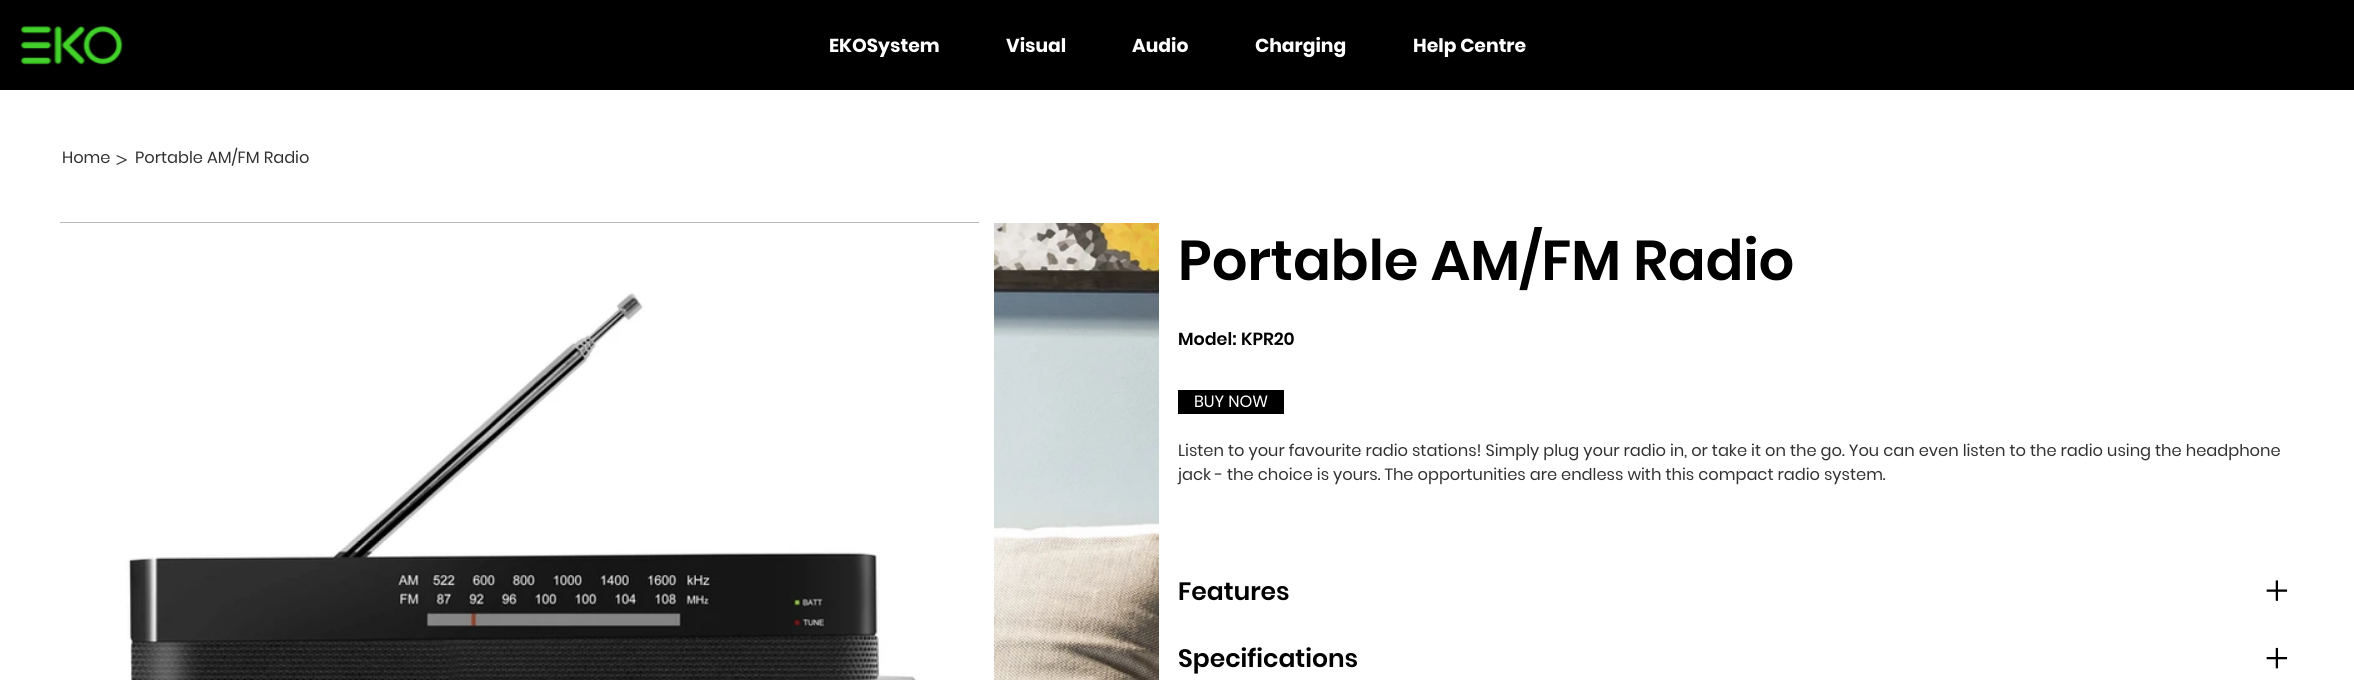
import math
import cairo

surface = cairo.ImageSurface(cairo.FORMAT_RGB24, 2354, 680)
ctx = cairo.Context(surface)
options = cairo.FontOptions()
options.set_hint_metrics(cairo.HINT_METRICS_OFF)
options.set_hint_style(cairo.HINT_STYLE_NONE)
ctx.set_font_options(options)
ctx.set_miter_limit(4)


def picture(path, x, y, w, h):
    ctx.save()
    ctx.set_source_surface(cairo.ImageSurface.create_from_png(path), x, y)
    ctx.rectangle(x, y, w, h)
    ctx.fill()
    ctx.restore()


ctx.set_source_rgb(1, 1, 1)
ctx.paint()
ctx.set_source_rgb(0, 0, 0)
ctx.rectangle(0, 0, 2354, 90)
ctx.fill()
picture("img1.png", 20, 25, 103, 40)
ctx.select_font_face("Poppins", cairo.FONT_SLANT_NORMAL, cairo.FONT_WEIGHT_BOLD)
ctx.set_font_size(18.75)
ctx.set_source_rgb(1, 1, 1)
ctx.move_to(829, 52)
ctx.show_text("EKOSystem")
ctx.move_to(1006, 52)
ctx.show_text("Visual")
ctx.move_to(1132, 52)
ctx.show_text("Audio")
ctx.move_to(1255, 52)
ctx.show_text("Charging")
ctx.move_to(1413, 52)
ctx.show_text("Help Centre")
ctx.select_font_face("Poppins")
ctx.set_font_size(16.25)
ctx.set_source_rgb(0.196, 0.196, 0.196)
ctx.move_to(62, 163)
ctx.show_text("Home")
ctx.select_font_face("helvetica Light")
ctx.set_font_size(20)
ctx.move_to(115, 165)
ctx.show_text(">")
ctx.select_font_face("Poppins")
ctx.set_font_size(16.25)
ctx.move_to(135, 163)
ctx.show_text("Portable AM/FM Radio")
ctx.set_source_rgb(0.733, 0.733, 0.733)
ctx.rectangle(60, 222, 919, 1)
ctx.fill()
picture("img2.png", 60, 223, 919, 457)
picture("img3.png", 994, 223, 165, 457)
ctx.select_font_face("Poppins SemiBold")
ctx.set_font_size(56)
ctx.set_source_rgb(0, 0, 0)
ctx.move_to(1178, 280)
ctx.show_text("Portable AM/FM Radio")
ctx.set_font_size(17.5)
ctx.move_to(1178, 345)
ctx.show_text("Model:")
ctx.move_to(1241, 345)
ctx.show_text("KPR20")
ctx.rectangle(1178, 390, 106, 24)
ctx.fill()
ctx.select_font_face("Poppins")
ctx.set_font_size(16.25)
ctx.set_source_rgb(1, 1, 1)
ctx.move_to(1194, 407)
ctx.show_text("BUY NOW")
ctx.set_source_rgb(0.196, 0.196, 0.196)
ctx.move_to(1178, 456)
ctx.show_text("Listen to your favourite radio stations! Simply plug your radio in, or take it on the go. You can even listen to the radio using the headphone")
ctx.move_to(1178, 480)
ctx.show_text("jack - the choice is yours. The opportunities are endless with this compact radio system.")
ctx.select_font_face("Poppins SemiBold")
ctx.set_font_size(25)
ctx.set_source_rgb(0, 0, 0)
ctx.move_to(1178, 600)
ctx.show_text("Features")
picture("img4.png", 2266, 580, 22, 21)
ctx.move_to(1178, 667)
ctx.show_text("Specifications")
picture("img5.png", 2266, 647, 22, 22)
surface.write_to_png("page.png")
